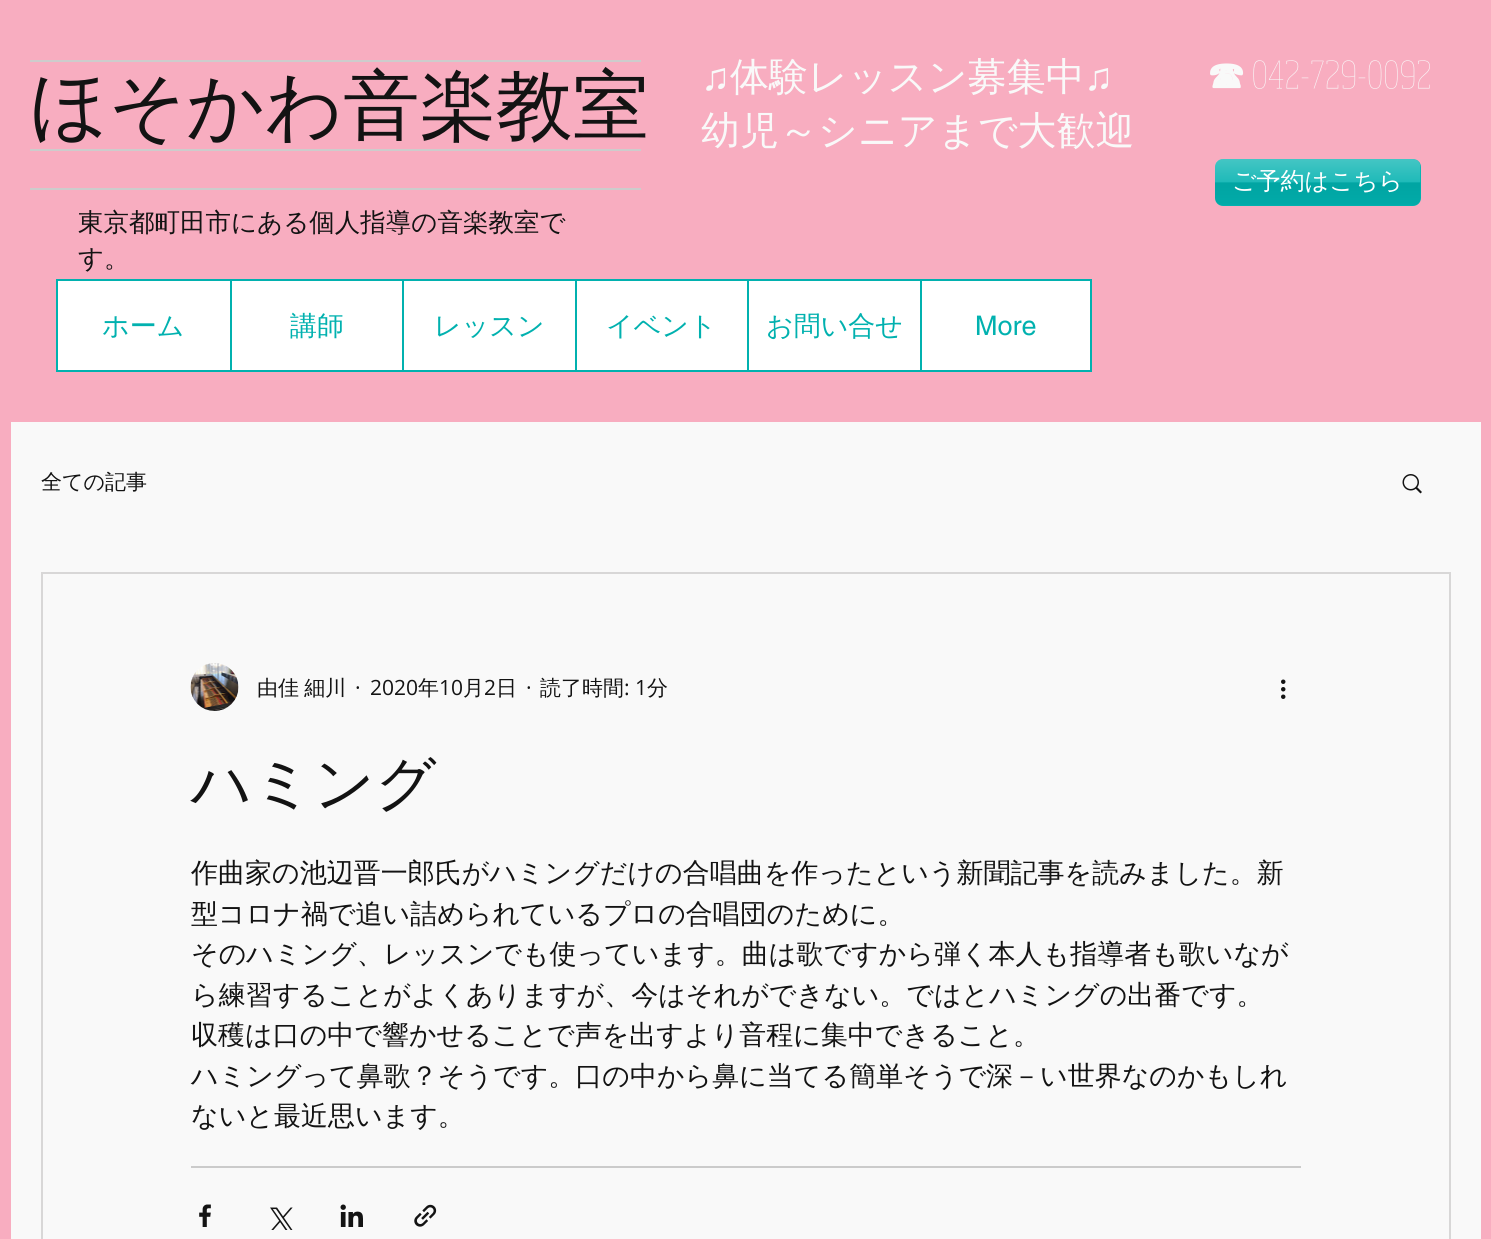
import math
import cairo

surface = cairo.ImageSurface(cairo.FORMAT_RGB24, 1491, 1239)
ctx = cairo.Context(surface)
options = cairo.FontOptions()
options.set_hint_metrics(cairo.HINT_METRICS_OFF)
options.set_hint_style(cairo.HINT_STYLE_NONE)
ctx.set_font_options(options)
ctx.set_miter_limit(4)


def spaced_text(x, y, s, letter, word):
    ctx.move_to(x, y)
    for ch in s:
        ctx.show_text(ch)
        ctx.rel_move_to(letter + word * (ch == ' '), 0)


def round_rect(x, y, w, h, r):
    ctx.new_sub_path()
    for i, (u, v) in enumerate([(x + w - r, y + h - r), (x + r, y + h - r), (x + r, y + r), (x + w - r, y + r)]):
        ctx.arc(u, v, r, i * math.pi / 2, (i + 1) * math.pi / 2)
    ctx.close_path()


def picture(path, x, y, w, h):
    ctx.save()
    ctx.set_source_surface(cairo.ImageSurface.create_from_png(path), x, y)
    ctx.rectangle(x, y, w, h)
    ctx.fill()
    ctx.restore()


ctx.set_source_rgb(0.969, 0.678, 0.753)
ctx.paint()
ctx.set_source_rgb(0.804, 0.8, 0.8)
ctx.rectangle(30, 60, 611, 2)
ctx.fill()
ctx.select_font_face("Liberation Sans")
ctx.set_font_size(39)
ctx.set_source_rgb(0.976, 0.976, 0.976)
ctx.move_to(701, 90)
ctx.show_text("♫")
ctx.select_font_face("WenQuanYi Zen Hei Medium")
ctx.move_to(730, 90)
ctx.show_text("体験レッスン募集中")
ctx.select_font_face("Liberation Sans")
ctx.move_to(1084, 90)
ctx.show_text("♫")
ctx.select_font_face("WenQuanYi Zen Hei Medium")
ctx.move_to(701, 144)
ctx.show_text("幼児～シニアまで大歓迎")
ctx.set_font_size(76.5)
ctx.set_source_rgb(0.078, 0.078, 0.078)
ctx.move_to(30, 132)
ctx.show_text("ほそかわ音楽教室")
ctx.select_font_face("WenQuanYi Zen Hei", cairo.FONT_SLANT_NORMAL, cairo.FONT_WEIGHT_BOLD)
ctx.set_font_size(38)
ctx.set_source_rgb(0.976, 0.976, 0.976)
ctx.move_to(1207, 89)
ctx.show_text("☎")
picture("img1.png", 1253, 60, 177, 29)
ctx.set_source_rgb(0.804, 0.8, 0.8)
ctx.rectangle(30, 149, 611, 2)
ctx.fill()
ctx.rectangle(30, 188, 611, 2)
ctx.fill()
ctx.set_source_rgb(0.004, 0.694, 0.686)
round_rect(1215, 159, 206, 47, 8)
ctx.fill()
picture("img2.png", 1215, 159, 206, 46)
ctx.select_font_face("WenQuanYi Zen Hei Medium")
ctx.set_font_size(24)
ctx.set_source_rgb(1, 1, 1)
ctx.move_to(1232, 189)
ctx.show_text("ご予約はこちら")
ctx.set_font_size(25.5)
ctx.set_source_rgb(0.078, 0.078, 0.078)
ctx.move_to(78, 231)
ctx.show_text("東京都町田市にある個人指導の音楽教室で")
ctx.move_to(78, 267)
ctx.show_text("す。")
ctx.set_source_rgb(1, 1, 1)
ctx.rectangle(57, 280, 1034, 91)
ctx.fill_preserve()
ctx.set_source_rgb(0.004, 0.694, 0.686)
ctx.stroke()
ctx.set_font_size(27)
ctx.move_to(102, 335)
ctx.show_text("ホーム")
ctx.rectangle(230, 281, 2, 90)
ctx.fill()
ctx.move_to(290, 335)
ctx.show_text("講師")
ctx.rectangle(402, 281, 2, 90)
ctx.fill()
ctx.move_to(434, 335)
ctx.show_text("レッスン")
ctx.rectangle(575, 281, 2, 90)
ctx.fill()
ctx.move_to(606, 335)
ctx.show_text("イベント")
ctx.rectangle(747, 281, 2, 90)
ctx.fill()
ctx.move_to(766, 335)
ctx.show_text("お問い合せ")
ctx.rectangle(920, 281, 2, 90)
ctx.fill()
ctx.select_font_face("helvetica")
ctx.move_to(975, 335)
ctx.show_text("More")
ctx.set_source_rgb(0.976, 0.976, 0.976)
ctx.rectangle(11, 422, 1470, 817)
ctx.fill()
ctx.select_font_face("WenQuanYi Zen Hei Medium")
ctx.set_font_size(21)
ctx.set_source_rgb(0.078, 0.078, 0.078)
ctx.move_to(41, 489)
ctx.show_text("全ての記事")
picture("img3.png", 1402, 474, 20, 20)
ctx.rectangle(42, 573, 1408, 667)
ctx.set_source_rgb(0.847, 0.843, 0.843)
ctx.stroke()
picture("img4.png", 190, 663, 49, 48)
ctx.set_source_rgb(0.078, 0.078, 0.078)
spaced_text(257, 695, "由佳 細川", 0, -1)
ctx.select_font_face("Open Sans")
ctx.move_to(355, 695)
ctx.show_text("·")
ctx.move_to(370, 695)
ctx.show_text("2020")
ctx.select_font_face("WenQuanYi Zen Hei Medium")
ctx.move_to(418, 695)
ctx.show_text("年")
ctx.select_font_face("Open Sans")
ctx.move_to(439, 695)
ctx.show_text("10")
ctx.select_font_face("WenQuanYi Zen Hei Medium")
ctx.move_to(463, 695)
ctx.show_text("月")
ctx.select_font_face("Open Sans")
ctx.move_to(484, 695)
ctx.show_text("2")
ctx.select_font_face("WenQuanYi Zen Hei Medium")
ctx.move_to(496, 695)
ctx.show_text("日")
ctx.select_font_face("Open Sans")
ctx.move_to(526, 695)
ctx.show_text("·")
ctx.select_font_face("WenQuanYi Zen Hei Medium")
ctx.move_to(540, 695)
ctx.show_text("読了時間")
ctx.select_font_face("Open Sans")
ctx.move_to(624, 695)
ctx.show_text(": 1")
ctx.select_font_face("WenQuanYi Zen Hei Medium")
ctx.move_to(647, 695)
ctx.show_text("分")
picture("img5.png", 1281, 679, 5, 20)
ctx.set_font_size(60)
ctx.move_to(191, 804)
ctx.show_text("ハミング")
ctx.set_font_size(27)
ctx.move_to(191, 882)
ctx.show_text("作曲家の池辺晋一郎氏がハミングだけの合唱曲を作ったという新聞記事を読みました。新")
ctx.move_to(191, 923)
ctx.show_text("型コロナ禍で追い詰められているプロの合唱団のために。")
ctx.move_to(191, 963)
ctx.show_text("そのハミング、レッスンでも使っています。曲は歌ですから弾く本人も指導者も歌いなが")
ctx.move_to(191, 1004)
ctx.show_text("ら練習することがよくありますが、今はそれができない。ではとハミングの出番です。")
ctx.move_to(191, 1044)
ctx.show_text("収穫は口の中で響かせることで声を出すより音程に集中できること。")
ctx.move_to(191, 1085)
ctx.show_text("ハミングって鼻歌？そうです。口の中から鼻に当てる簡単そうで深－い世界なのかもしれ")
ctx.move_to(191, 1125)
ctx.show_text("ないと最近思います。")
ctx.set_source_rgb(0.796, 0.796, 0.796)
ctx.rectangle(191, 1166, 1110, 2)
ctx.fill()
picture("img6.png", 199, 1204, 12, 23)
picture("img7.png", 270, 1207, 23, 23)
picture("img8.png", 340, 1204, 23, 23)
picture("img9.png", 414, 1204, 23, 23)
surface.write_to_png("page.png")
